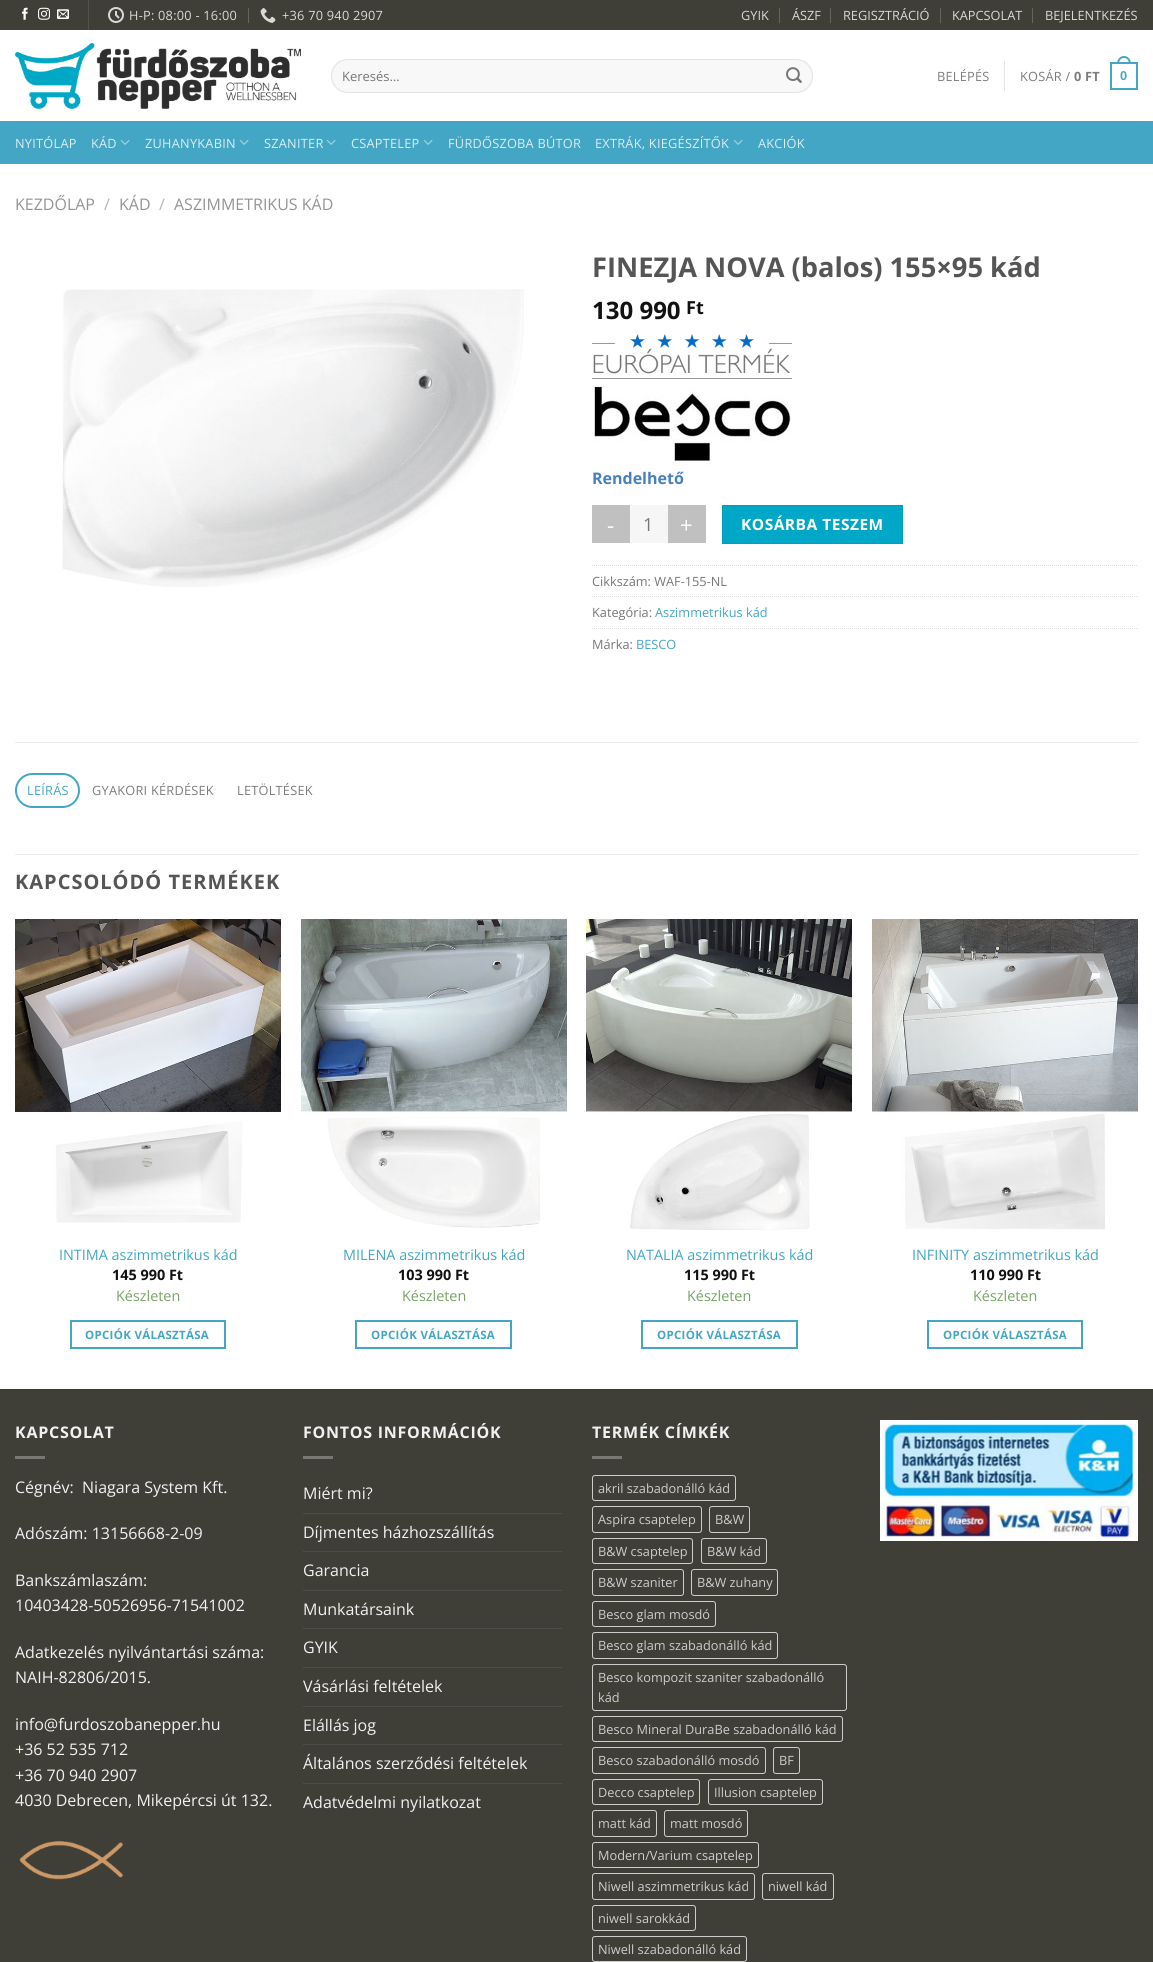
import math
import cairo

surface = cairo.ImageSurface(cairo.FORMAT_RGB24, 1153, 1962)
ctx = cairo.Context(surface)
options = cairo.FontOptions()
options.set_hint_metrics(cairo.HINT_METRICS_OFF)
options.set_hint_style(cairo.HINT_STYLE_NONE)
ctx.set_font_options(options)
ctx.set_miter_limit(4)


def spaced_text(x, y, s, letter, word):
    ctx.move_to(x, y)
    for ch in s:
        ctx.show_text(ch)
        ctx.rel_move_to(letter + word * (ch == ' '), 0)


def round_rect(x, y, w, h, r):
    ctx.new_sub_path()
    for i, (u, v) in enumerate([(x + w - r, y + h - r), (x + r, y + h - r), (x + r, y + r), (x + w - r, y + r)]):
        ctx.arc(u, v, r, i * math.pi / 2, (i + 1) * math.pi / 2)
    ctx.close_path()


def picture(path, x, y, w, h):
    ctx.save()
    ctx.set_source_surface(cairo.ImageSurface.create_from_png(path), x, y)
    ctx.rectangle(x, y, w, h)
    ctx.fill()
    ctx.restore()


ctx.set_source_rgb(1, 1, 1)
ctx.paint()
ctx.set_source_rgb(0.247, 0.247, 0.22)
ctx.rectangle(0, 0, 1153, 30)
ctx.fill()
picture("img1.png", 22, 7, 6, 13)
picture("img2.png", 38, 7, 12, 13)
picture("img3.png", 57, 9, 12, 10)
ctx.set_source_rgb(0.322, 0.322, 0.298)
ctx.rectangle(88, 0, 1, 30)
ctx.fill()
picture("img4.png", 108, 7, 16, 16)
ctx.select_font_face("Open Sans")
ctx.set_font_size(12.75)
ctx.set_source_rgb(0.851, 0.851, 0.843)
spaced_text(129, 20, "H-P: 08:00 - 16:00", 0.25, 0)
ctx.set_source_rgb(0.396, 0.396, 0.376)
ctx.rectangle(248, 8, 1, 15)
ctx.fill()
picture("img5.png", 260, 8, 16, 15)
ctx.set_source_rgb(0.851, 0.851, 0.843)
spaced_text(282, 20, "+36 70 940 2907", 0.25, 0)
ctx.move_to(741, 20)
ctx.show_text("GYIK")
ctx.set_source_rgb(0.396, 0.396, 0.376)
ctx.rectangle(779, 8, 1, 15)
ctx.fill()
ctx.set_source_rgb(0.851, 0.851, 0.843)
ctx.move_to(792, 20)
ctx.show_text("ÁSZF")
ctx.set_source_rgb(0.396, 0.396, 0.376)
ctx.rectangle(830, 8, 1, 15)
ctx.fill()
ctx.set_source_rgb(0.851, 0.851, 0.843)
ctx.move_to(843, 20)
ctx.show_text("REGISZTRÁCIÓ")
ctx.set_source_rgb(0.396, 0.396, 0.376)
ctx.rectangle(940, 8, 1, 15)
ctx.fill()
ctx.set_source_rgb(0.851, 0.851, 0.843)
ctx.move_to(952, 20)
ctx.show_text("KAPCSOLAT")
ctx.set_source_rgb(0.396, 0.396, 0.376)
ctx.rectangle(1032, 8, 1, 15)
ctx.fill()
ctx.set_source_rgb(0.851, 0.851, 0.843)
ctx.move_to(1045, 20)
ctx.show_text("BEJELENTKEZÉS")
picture("img6.png", 15, 43, 286, 66)
ctx.set_source_rgb(0.969, 0.969, 0.969)
round_rect(331, 59, 482, 34, 17)
ctx.fill()
round_rect(331.5, 59.5, 481, 33, 16.5)
ctx.set_source_rgba(0, 0, 0, 0.09)
ctx.set_line_width(1)
ctx.stroke()
ctx.set_font_size(13)
ctx.set_source_rgb(0.467, 0.467, 0.467)
ctx.move_to(342, 81)
ctx.show_text("Keresés…")
picture("img7.png", 786, 67, 16, 16)
ctx.set_font_size(12.75)
ctx.set_source_rgb(0.49, 0.49, 0.49)
spaced_text(937, 81, "BELÉPÉS", 0.25, 0)
ctx.set_source_rgb(0.902, 0.902, 0.902)
ctx.rectangle(1004, 61, 1, 30)
ctx.fill()
ctx.set_source_rgb(0.49, 0.49, 0.49)
spaced_text(1020, 81, "KOSÁR /", 0.25, 0)
ctx.select_font_face("Open Sans", cairo.FONT_SLANT_NORMAL, cairo.FONT_WEIGHT_BOLD)
spaced_text(1074, 81, "0 FT", 0.25, 0)
ctx.rectangle(1111, 63, 26, 26)
ctx.set_source_rgb(0.263, 0.651, 0.769)
ctx.set_line_width(2)
ctx.stroke()
ctx.set_fill_rule(cairo.FILL_RULE_EVEN_ODD)
ctx.new_path()
ctx.move_to(1124, 56)
ctx.curve_to(1128.5, 56, 1131, 60, 1131, 64)
ctx.line_to(1117, 64)
ctx.curve_to(1117, 60, 1119.5, 56, 1124, 56)
ctx.close_path()
ctx.move_to(1124, 58)
ctx.curve_to(1127.5, 58, 1129, 61, 1129, 64)
ctx.line_to(1119, 64)
ctx.curve_to(1119, 61, 1120.5, 58, 1124, 58)
ctx.close_path()
ctx.fill()
ctx.select_font_face("Liberation Sans", cairo.FONT_SLANT_NORMAL, cairo.FONT_WEIGHT_BOLD)
spaced_text(1120, 80, "0", 0.25, 0)
ctx.rectangle(0, 121, 1153, 43)
ctx.fill()
ctx.set_source_rgb(0.282, 0.631, 0.737)
ctx.rectangle(15, 121, 1123, 1)
ctx.fill()
ctx.select_font_face("Open Sans")
ctx.set_source_rgb(0.851, 0.929, 0.953)
spaced_text(15, 148, "NYITÓLAP", 0.25, 0)
spaced_text(91, 148, "KÁD", 0.25, 0)
picture("img8.png", 120, 139, 10, 6)
spaced_text(145, 148, "ZUHANYKABIN", 0.25, 0)
picture("img8.png", 239, 139, 10, 6)
spaced_text(264, 148, "SZANITER", 0.25, 0)
picture("img8.png", 326, 139, 10, 6)
spaced_text(351, 148, "CSAPTELEP", 0.25, 0)
picture("img8.png", 423, 139, 10, 6)
spaced_text(448, 148, "FÜRDŐSZOBA BÚTOR", 0.25, 0)
spaced_text(595, 148, "EXTRÁK, KIEGÉSZÍTŐK", 0.25, 0)
picture("img8.png", 733, 139, 10, 6)
spaced_text(758, 148, "AKCIÓK", 0.25, 0)
ctx.set_font_size(16)
ctx.set_source_rgb(0.58, 0.58, 0.58)
ctx.move_to(15, 210)
ctx.show_text("KEZDŐLAP")
ctx.set_source_rgb(0.698, 0.698, 0.698)
ctx.move_to(104, 210)
ctx.show_text("/")
ctx.set_source_rgb(0.58, 0.58, 0.58)
ctx.move_to(119, 210)
ctx.show_text("KÁD")
ctx.set_source_rgb(0.698, 0.698, 0.698)
ctx.move_to(159, 210)
ctx.show_text("/")
ctx.set_source_rgb(0.58, 0.58, 0.58)
ctx.move_to(174, 210)
ctx.show_text("ASZIMMETRIKUS KÁD")
picture("img9.png", 62, 289, 462, 298)
ctx.select_font_face("Open Sans", cairo.FONT_SLANT_NORMAL, cairo.FONT_WEIGHT_BOLD)
ctx.set_font_size(27.25)
ctx.set_source_rgb(0.333, 0.333, 0.333)
ctx.move_to(592, 277)
ctx.show_text("FINEZJA NOVA (balos) 155×95 kád")
ctx.set_font_size(24)
ctx.set_source_rgb(0.067, 0.067, 0.067)
ctx.move_to(592, 319)
ctx.show_text("130 990")
ctx.set_font_size(18)
ctx.move_to(686, 314)
ctx.show_text("Ft")
picture("img10.png", 592, 334, 200, 45)
picture("img11.png", 592, 385, 199, 81)
ctx.set_font_size(16)
ctx.set_source_rgb(0.275, 0.502, 0.745)
ctx.move_to(592, 484)
ctx.show_text("Rendelhető")
ctx.set_source_rgb(0.753, 0.753, 0.753)
ctx.rectangle(592, 505, 38, 38)
ctx.fill()
ctx.select_font_face("Open Sans")
ctx.set_font_size(22)
ctx.set_source_rgb(1, 1, 1)
spaced_text(607, 533, "-", 1, 0)
ctx.set_source_rgb(0.961, 0.961, 0.961)
ctx.rectangle(630, 505, 38, 38)
ctx.fill()
ctx.set_font_size(18)
ctx.set_source_rgb(0.467, 0.467, 0.467)
ctx.move_to(643, 531)
ctx.show_text("1")
ctx.set_source_rgb(0.753, 0.753, 0.753)
ctx.rectangle(668, 505, 38, 38)
ctx.fill()
ctx.set_font_size(22)
ctx.set_source_rgb(1, 1, 1)
spaced_text(680, 533, "+", 1, 0)
ctx.set_source_rgb(0, 0.655, 0.776)
ctx.rectangle(722.5, 505.5, 180, 38)
ctx.fill_preserve()
ctx.set_source_rgb(0, 0.624, 0.737)
ctx.set_line_width(1)
ctx.stroke()
ctx.select_font_face("Open Sans", cairo.FONT_SLANT_NORMAL, cairo.FONT_WEIGHT_BOLD)
ctx.set_font_size(15.5)
ctx.set_source_rgb(1, 1, 1)
spaced_text(741, 530, "KOSÁRBA TESZEM", 0.5, 0)
ctx.new_path()
ctx.move_to(592, 565.5)
ctx.line_to(1138, 565.5)
ctx.set_source_rgb(0.867, 0.867, 0.867)
ctx.set_dash([1, 1])
ctx.stroke()
ctx.select_font_face("Open Sans")
ctx.set_font_size(12.75)
ctx.set_source_rgb(0.467, 0.467, 0.467)
ctx.move_to(592, 586)
ctx.show_text("Cikkszám: WAF-155-NL")
ctx.new_path()
ctx.move_to(592, 596.5)
ctx.line_to(1138, 596.5)
ctx.set_source_rgb(0.867, 0.867, 0.867)
ctx.stroke()
ctx.set_source_rgb(0.467, 0.467, 0.467)
ctx.move_to(592, 617)
ctx.show_text("Kategória:")
ctx.set_source_rgb(0.263, 0.651, 0.769)
ctx.move_to(655, 617)
ctx.show_text("Aszimmetrikus kád")
ctx.new_path()
ctx.move_to(592, 628.5)
ctx.line_to(1138, 628.5)
ctx.set_source_rgb(0.867, 0.867, 0.867)
ctx.stroke()
ctx.set_source_rgb(0.467, 0.467, 0.467)
ctx.move_to(592, 649)
ctx.show_text("Márka:")
ctx.set_source_rgb(0.263, 0.651, 0.769)
ctx.move_to(636, 649)
ctx.show_text("BESCO")
ctx.set_source_rgb(0.925, 0.925, 0.925)
ctx.rectangle(15, 742, 1123, 1)
ctx.fill()
round_rect(16, 774, 63, 33, 16.5)
ctx.set_source_rgb(0.263, 0.651, 0.769)
ctx.set_line_width(2)
ctx.set_dash([])
ctx.stroke()
spaced_text(27, 795, "LEÍRÁS", 0.25, 0)
ctx.set_source_rgb(0.49, 0.49, 0.49)
spaced_text(92, 795, "GYAKORI KÉRDÉSEK", 0.25, 0)
spaced_text(237, 795, "LETÖLTÉSEK", 0.25, 0)
ctx.set_source_rgb(0.925, 0.925, 0.925)
ctx.rectangle(15, 854, 1123, 1)
ctx.fill()
ctx.select_font_face("Open Sans", cairo.FONT_SLANT_NORMAL, cairo.FONT_WEIGHT_BOLD)
ctx.set_font_size(20)
ctx.set_source_rgb(0.333, 0.333, 0.333)
spaced_text(15, 889, "KAPCSOLÓDÓ TERMÉKEK", 1, 0)
picture("img12.png", 15, 919, 266, 304)
ctx.select_font_face("Open Sans")
ctx.set_font_size(14.4)
ctx.set_source_rgb(0.263, 0.651, 0.769)
ctx.move_to(59, 1260)
ctx.show_text("INTIMA aszimmetrikus kád")
ctx.select_font_face("Open Sans", cairo.FONT_SLANT_NORMAL, cairo.FONT_WEIGHT_BOLD)
ctx.set_source_rgb(0.067, 0.067, 0.067)
ctx.move_to(112, 1280)
ctx.show_text("145 990 Ft")
ctx.select_font_face("Open Sans")
ctx.set_source_rgb(0.467, 0.643, 0.392)
ctx.move_to(116, 1301)
ctx.show_text("Készleten")
ctx.rectangle(71, 1321, 154, 27)
ctx.set_source_rgb(0.263, 0.651, 0.769)
ctx.stroke()
ctx.select_font_face("Open Sans", cairo.FONT_SLANT_NORMAL, cairo.FONT_WEIGHT_BOLD)
ctx.set_font_size(11.5)
spaced_text(85, 1339, "OPCIÓK VÁLASZTÁSA", 0.3, 0)
picture("img13.png", 301, 919, 266, 309)
ctx.select_font_face("Open Sans")
ctx.set_font_size(14.4)
ctx.move_to(343, 1260)
ctx.show_text("MILENA aszimmetrikus kád")
ctx.select_font_face("Open Sans", cairo.FONT_SLANT_NORMAL, cairo.FONT_WEIGHT_BOLD)
ctx.set_source_rgb(0.067, 0.067, 0.067)
ctx.move_to(398, 1280)
ctx.show_text("103 990 Ft")
ctx.select_font_face("Open Sans")
ctx.set_source_rgb(0.467, 0.643, 0.392)
ctx.move_to(402, 1301)
ctx.show_text("Készleten")
ctx.rectangle(356, 1321, 155, 27)
ctx.set_source_rgb(0.263, 0.651, 0.769)
ctx.stroke()
ctx.select_font_face("Open Sans", cairo.FONT_SLANT_NORMAL, cairo.FONT_WEIGHT_BOLD)
ctx.set_font_size(11.5)
spaced_text(371, 1339, "OPCIÓK VÁLASZTÁSA", 0.3, 0)
picture("img14.png", 586, 919, 266, 311)
ctx.select_font_face("Open Sans")
ctx.set_font_size(14.4)
ctx.move_to(626, 1260)
ctx.show_text("NATALIA aszimmetrikus kád")
ctx.select_font_face("Open Sans", cairo.FONT_SLANT_NORMAL, cairo.FONT_WEIGHT_BOLD)
ctx.set_source_rgb(0.067, 0.067, 0.067)
ctx.move_to(684, 1280)
ctx.show_text("115 990 Ft")
ctx.select_font_face("Open Sans")
ctx.set_source_rgb(0.467, 0.643, 0.392)
ctx.move_to(687, 1301)
ctx.show_text("Készleten")
ctx.rectangle(642, 1321, 155, 27)
ctx.set_source_rgb(0.263, 0.651, 0.769)
ctx.stroke()
ctx.select_font_face("Open Sans", cairo.FONT_SLANT_NORMAL, cairo.FONT_WEIGHT_BOLD)
ctx.set_font_size(11.5)
spaced_text(657, 1339, "OPCIÓK VÁLASZTÁSA", 0.3, 0)
picture("img15.png", 872, 919, 266, 311)
ctx.select_font_face("Open Sans")
ctx.set_font_size(14.4)
ctx.move_to(912, 1260)
ctx.show_text("INFINITY aszimmetrikus kád")
ctx.select_font_face("Open Sans", cairo.FONT_SLANT_NORMAL, cairo.FONT_WEIGHT_BOLD)
ctx.set_source_rgb(0.067, 0.067, 0.067)
ctx.move_to(970, 1280)
ctx.show_text("110 990 Ft")
ctx.select_font_face("Open Sans")
ctx.set_source_rgb(0.467, 0.643, 0.392)
ctx.move_to(973, 1301)
ctx.show_text("Készleten")
ctx.rectangle(928, 1321, 154, 27)
ctx.set_source_rgb(0.263, 0.651, 0.769)
ctx.stroke()
ctx.select_font_face("Open Sans", cairo.FONT_SLANT_NORMAL, cairo.FONT_WEIGHT_BOLD)
ctx.set_font_size(11.5)
spaced_text(943, 1339, "OPCIÓK VÁLASZTÁSA", 0.3, 0)
ctx.set_source_rgb(0.247, 0.247, 0.22)
ctx.rectangle(0, 1390, 1153, 572)
ctx.fill()
ctx.set_source_rgb(0.235, 0.235, 0.208)
ctx.rectangle(0, 1389, 1153, 1)
ctx.fill()
ctx.set_font_size(16)
ctx.set_source_rgb(0.945, 0.945, 0.945)
spaced_text(15, 1438, "KAPCSOLAT", 0.75, 0)
ctx.set_source_rgb(0.475, 0.475, 0.455)
ctx.rectangle(15, 1456, 30, 3)
ctx.fill()
ctx.select_font_face("Open Sans")
ctx.set_source_rgb(0.945, 0.945, 0.945)
ctx.move_to(15, 1493)
ctx.show_text("Cégnév:  Niagara System Kft.")
ctx.move_to(15, 1539)
ctx.show_text("Adószám: 13156668-2-09")
ctx.move_to(15, 1586)
ctx.show_text("Bankszámlaszám:")
ctx.move_to(15, 1611)
ctx.show_text("10403428-50526956-71541002")
ctx.move_to(15, 1658)
ctx.show_text("Adatkezelés nyilvántartási száma:")
ctx.move_to(15, 1683)
ctx.show_text("NAIH-82806/2015.")
ctx.move_to(15, 1730)
ctx.show_text("info@furdoszobanepper.hu")
ctx.move_to(15, 1755)
ctx.show_text("+36 52 535 712")
ctx.move_to(15, 1781)
ctx.show_text("+36 70 940 2907")
ctx.move_to(15, 1806)
ctx.show_text("4030 Debrecen, Mikepércsi út 132.")
picture("img16.png", 19, 1841, 104, 39)
ctx.select_font_face("Open Sans", cairo.FONT_SLANT_NORMAL, cairo.FONT_WEIGHT_BOLD)
spaced_text(303, 1438, "FONTOS INFORMÁCIÓK", 0.75, 0)
ctx.set_source_rgb(0.475, 0.475, 0.455)
ctx.rectangle(303, 1456, 30, 3)
ctx.fill()
ctx.select_font_face("Open Sans")
ctx.set_source_rgb(0.945, 0.945, 0.945)
ctx.move_to(303, 1499)
ctx.show_text("Miért mi?")
ctx.set_source_rgb(0.306, 0.306, 0.282)
ctx.rectangle(303, 1513, 259, 1)
ctx.fill()
ctx.set_source_rgb(0.945, 0.945, 0.945)
ctx.move_to(303, 1538)
ctx.show_text("Díjmentes házhozszállítás")
ctx.set_source_rgb(0.306, 0.306, 0.282)
ctx.rectangle(303, 1551, 259, 1)
ctx.fill()
ctx.set_source_rgb(0.945, 0.945, 0.945)
ctx.move_to(303, 1576)
ctx.show_text("Garancia")
ctx.set_source_rgb(0.306, 0.306, 0.282)
ctx.rectangle(303, 1590, 259, 1)
ctx.fill()
ctx.set_source_rgb(0.945, 0.945, 0.945)
ctx.move_to(303, 1615)
ctx.show_text("Munkatársaink")
ctx.set_source_rgb(0.306, 0.306, 0.282)
ctx.rectangle(303, 1628, 259, 1)
ctx.fill()
ctx.set_source_rgb(0.945, 0.945, 0.945)
ctx.move_to(303, 1653)
ctx.show_text("GYIK")
ctx.set_source_rgb(0.306, 0.306, 0.282)
ctx.rectangle(303, 1667, 259, 1)
ctx.fill()
ctx.set_source_rgb(0.945, 0.945, 0.945)
ctx.move_to(303, 1692)
ctx.show_text("Vásárlási feltételek")
ctx.set_source_rgb(0.306, 0.306, 0.282)
ctx.rectangle(303, 1706, 259, 1)
ctx.fill()
ctx.set_source_rgb(0.945, 0.945, 0.945)
ctx.move_to(303, 1731)
ctx.show_text("Elállás jog")
ctx.set_source_rgb(0.306, 0.306, 0.282)
ctx.rectangle(303, 1744, 259, 1)
ctx.fill()
ctx.set_source_rgb(0.945, 0.945, 0.945)
ctx.move_to(303, 1769)
ctx.show_text("Általános szerződési feltételek")
ctx.set_source_rgb(0.306, 0.306, 0.282)
ctx.rectangle(303, 1783, 259, 1)
ctx.fill()
ctx.set_source_rgb(0.945, 0.945, 0.945)
ctx.move_to(303, 1808)
ctx.show_text("Adatvédelmi nyilatkozat")
ctx.select_font_face("Open Sans", cairo.FONT_SLANT_NORMAL, cairo.FONT_WEIGHT_BOLD)
spaced_text(592, 1438, "TERMÉK CÍMKÉK", 0.75, 0)
ctx.set_source_rgb(0.475, 0.475, 0.455)
ctx.rectangle(592, 1456, 30, 3)
ctx.fill()
round_rect(592.5, 1475.5, 143, 25, 2.5)
ctx.set_source_rgb(0.804, 0.804, 0.8)
ctx.set_line_width(1)
ctx.stroke()
ctx.select_font_face("Open Sans")
ctx.set_font_size(12.75)
ctx.move_to(598, 1493)
ctx.show_text("akril szabadonálló kád")
round_rect(592.5, 1506.5, 109, 26, 2.5)
ctx.stroke()
ctx.move_to(598, 1524)
ctx.show_text("Aspira csaptelep")
round_rect(709.5, 1506.5, 40, 26, 2.5)
ctx.stroke()
ctx.move_to(715, 1524)
ctx.show_text("B&W")
round_rect(592.5, 1538.5, 100, 25, 2.5)
ctx.stroke()
ctx.move_to(598, 1556)
ctx.show_text("B&W csaptelep")
round_rect(701.5, 1538.5, 65, 25, 2.5)
ctx.stroke()
ctx.move_to(707, 1556)
ctx.show_text("B&W kád")
round_rect(592.5, 1569.5, 91, 26, 2.5)
ctx.stroke()
ctx.move_to(598, 1587)
ctx.show_text("B&W szaniter")
round_rect(691.5, 1569.5, 86, 26, 2.5)
ctx.stroke()
ctx.move_to(697, 1587)
ctx.show_text("B&W zuhany")
round_rect(592.5, 1601.5, 123, 25, 2.5)
ctx.stroke()
ctx.move_to(598, 1619)
ctx.show_text("Besco glam mosdó")
round_rect(592.5, 1632.5, 185, 26, 2.5)
ctx.stroke()
ctx.move_to(598, 1650)
ctx.show_text("Besco glam szabadonálló kád")
round_rect(592.5, 1664.5, 254, 46, 2.5)
ctx.stroke()
ctx.move_to(598, 1682)
ctx.show_text("Besco kompozit szaniter szabadonálló")
ctx.move_to(598, 1702)
ctx.show_text("kád")
round_rect(592.5, 1716.5, 250, 25, 2.5)
ctx.stroke()
ctx.move_to(598, 1734)
ctx.show_text("Besco Mineral DuraBe szabadonálló kád")
round_rect(592.5, 1747.5, 173, 26, 2.5)
ctx.stroke()
ctx.move_to(598, 1765)
ctx.show_text("Besco szabadonálló mosdó")
round_rect(773.5, 1747.5, 26, 26, 2.5)
ctx.stroke()
ctx.move_to(779, 1765)
ctx.show_text("BF")
round_rect(592.5, 1779.5, 107, 25, 2.5)
ctx.stroke()
ctx.move_to(598, 1797)
ctx.show_text("Decco csaptelep")
round_rect(708.5, 1779.5, 114, 25, 2.5)
ctx.stroke()
ctx.move_to(714, 1797)
ctx.show_text("Illusion csaptelep")
round_rect(592.5, 1810.5, 64, 26, 2.5)
ctx.stroke()
ctx.move_to(598, 1828)
ctx.show_text("matt kád")
round_rect(664.5, 1810.5, 83, 26, 2.5)
ctx.stroke()
ctx.move_to(670, 1828)
ctx.show_text("matt mosdó")
round_rect(592.5, 1842.5, 166, 25, 2.5)
ctx.stroke()
ctx.move_to(598, 1860)
ctx.show_text("Modern/Varium csaptelep")
round_rect(592.5, 1873.5, 162, 26, 2.5)
ctx.stroke()
ctx.move_to(598, 1891)
ctx.show_text("Niwell aszimmetrikus kád")
round_rect(762.5, 1873.5, 71, 26, 2.5)
ctx.stroke()
ctx.move_to(768, 1891)
ctx.show_text("niwell kád")
round_rect(592.5, 1905.5, 103, 25, 2.5)
ctx.stroke()
ctx.move_to(598, 1923)
ctx.show_text("niwell sarokkád")
round_rect(592.5, 1936.5, 154, 25, 2.5)
ctx.stroke()
ctx.move_to(598, 1954)
ctx.show_text("Niwell szabadonálló kád")
picture("img17.png", 880, 1420, 258, 121)
surface.write_to_png("page.png")
